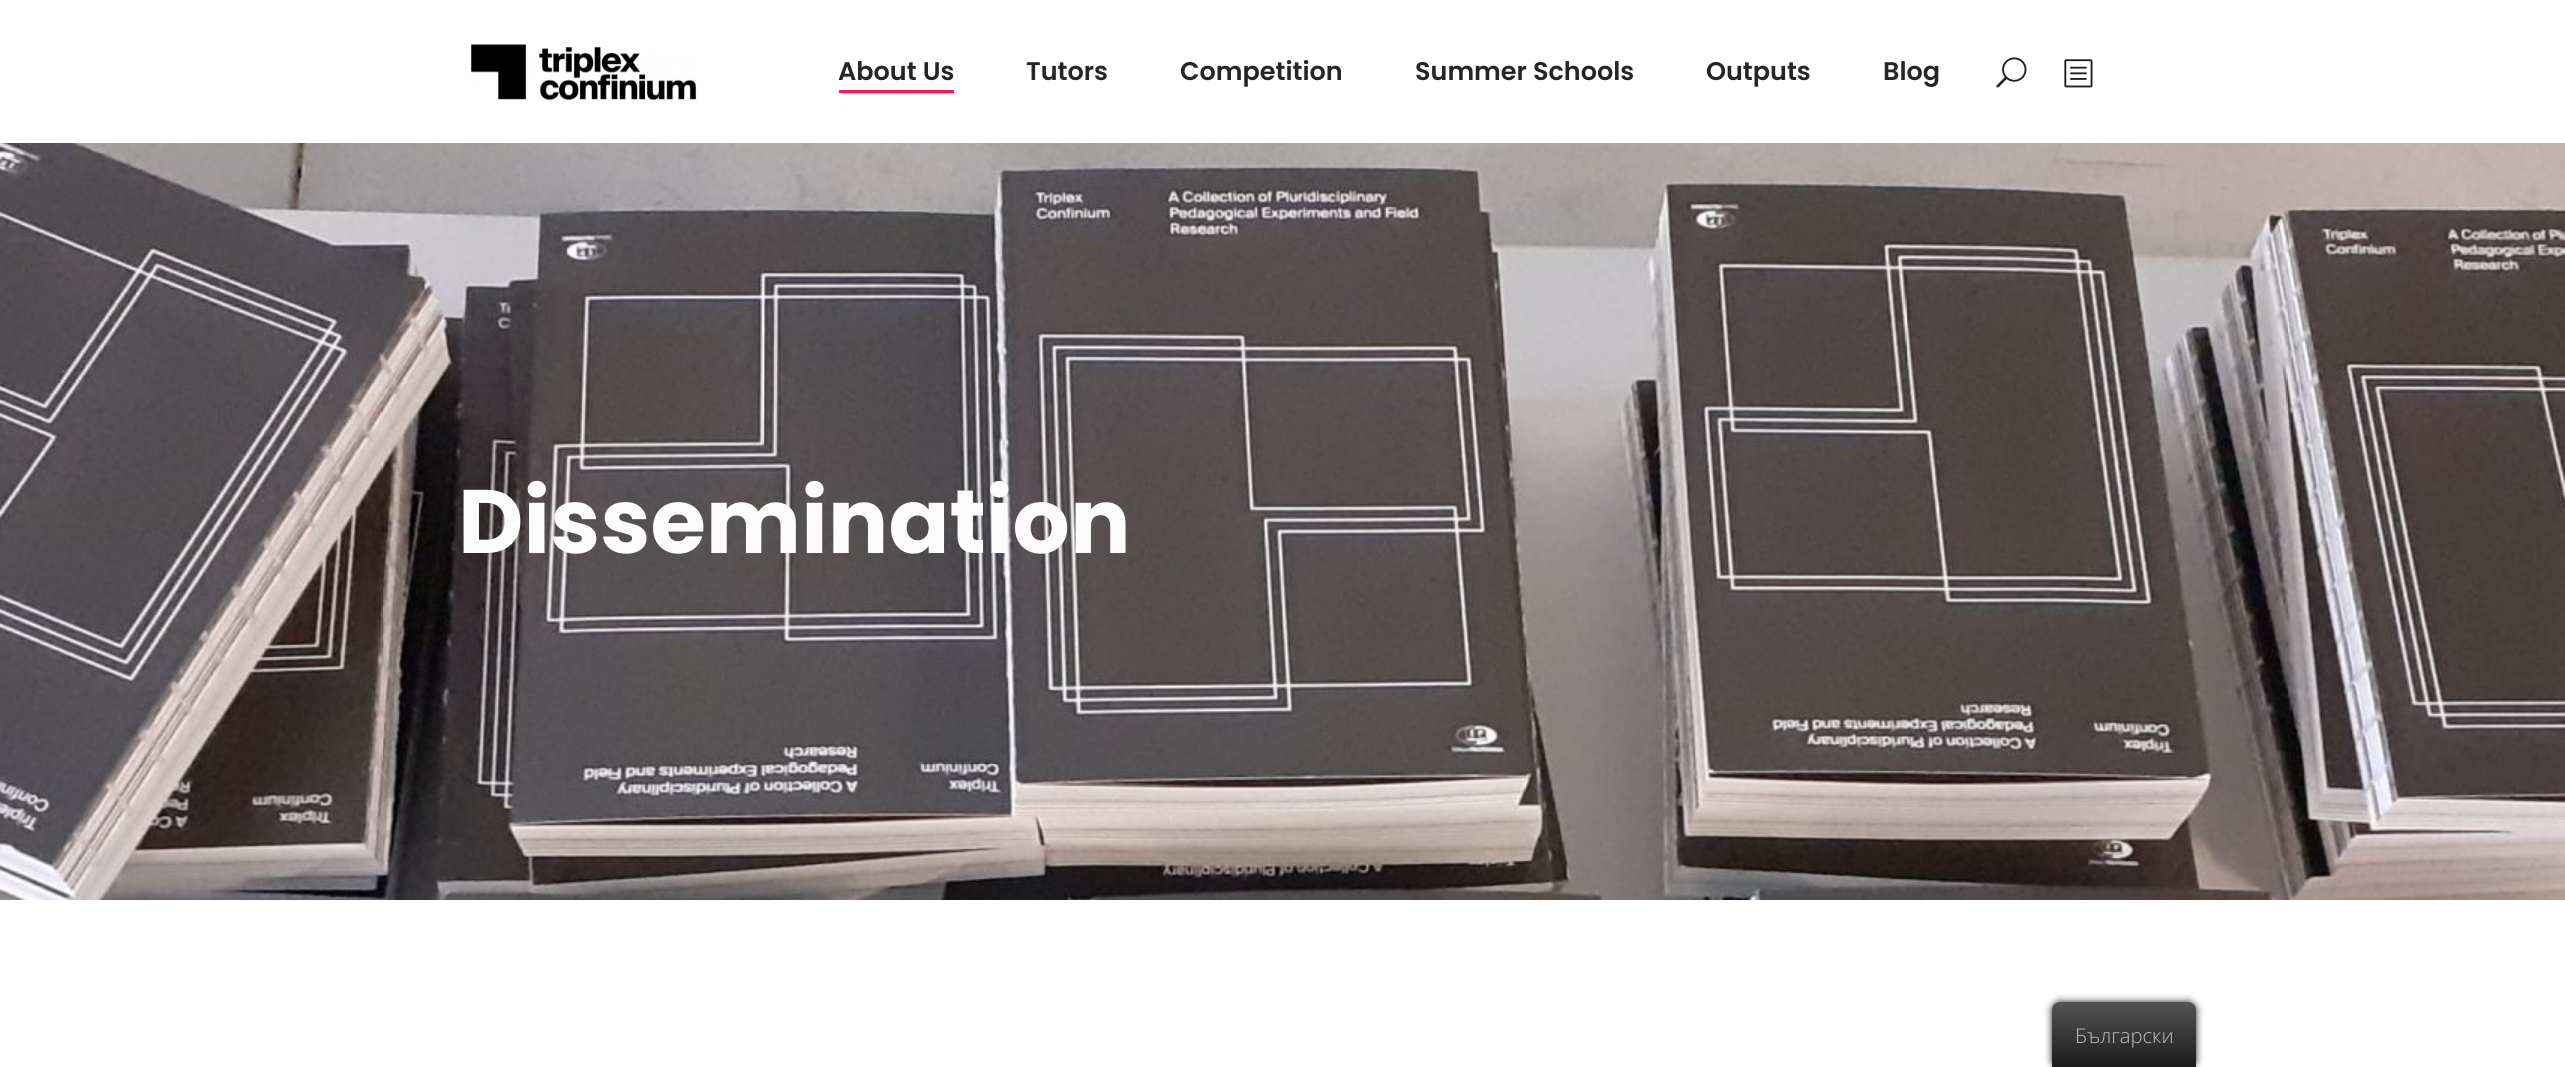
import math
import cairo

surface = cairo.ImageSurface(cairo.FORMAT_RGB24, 2565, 1067)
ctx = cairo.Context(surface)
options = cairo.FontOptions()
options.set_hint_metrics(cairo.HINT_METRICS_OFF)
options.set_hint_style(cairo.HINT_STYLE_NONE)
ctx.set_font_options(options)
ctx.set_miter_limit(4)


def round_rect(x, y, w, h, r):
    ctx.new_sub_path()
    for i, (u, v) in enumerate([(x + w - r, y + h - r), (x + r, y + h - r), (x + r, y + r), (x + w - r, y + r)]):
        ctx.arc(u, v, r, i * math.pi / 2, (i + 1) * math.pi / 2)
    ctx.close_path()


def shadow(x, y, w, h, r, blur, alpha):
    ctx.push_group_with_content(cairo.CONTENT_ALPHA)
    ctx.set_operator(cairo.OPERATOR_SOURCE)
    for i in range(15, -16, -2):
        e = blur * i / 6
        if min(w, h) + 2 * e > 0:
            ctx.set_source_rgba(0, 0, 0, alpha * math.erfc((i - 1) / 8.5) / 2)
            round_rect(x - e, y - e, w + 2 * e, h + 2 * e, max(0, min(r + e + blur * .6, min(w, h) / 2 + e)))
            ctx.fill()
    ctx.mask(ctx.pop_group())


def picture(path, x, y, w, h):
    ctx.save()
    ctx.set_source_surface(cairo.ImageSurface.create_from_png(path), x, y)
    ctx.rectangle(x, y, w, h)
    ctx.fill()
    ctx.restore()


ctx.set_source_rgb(1, 1, 1)
ctx.paint()
picture("img1.png", 471, 44, 226, 57)
ctx.select_font_face("Poppins SemiBold")
ctx.set_font_size(25.5)
ctx.set_source_rgb(0.145, 0.145, 0.145)
ctx.move_to(838, 80)
ctx.show_text("About Us")
ctx.set_source_rgb(1, 0.098, 0.286)
ctx.rectangle(839, 90, 115, 3)
ctx.fill()
ctx.set_source_rgb(0.145, 0.145, 0.145)
ctx.move_to(1026, 80)
ctx.show_text("Tutors")
ctx.move_to(1180, 80)
ctx.show_text("Competition")
ctx.move_to(1415, 80)
ctx.show_text("Summer Schools")
ctx.move_to(1706, 80)
ctx.show_text("Outputs")
ctx.move_to(1883, 80)
ctx.show_text("Blog")
picture("img2.png", 1996, 57, 31, 31)
picture("img3.png", 2064, 59, 29, 29)
picture("img4.png", 0, 143, 2565, 757)
ctx.select_font_face("Poppins", cairo.FONT_SLANT_NORMAL, cairo.FONT_WEIGHT_BOLD)
ctx.set_font_size(90)
ctx.set_source_rgb(0.988, 0.988, 0.988)
ctx.move_to(458, 553)
ctx.show_text("Dissemination")
ctx.set_source_rgb(0.129, 0.129, 0.129)
shadow(2052, 1002, 144, 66, 8, 4, 1)
gradient = cairo.LinearGradient(2124, 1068, 2124, 1002)
gradient.add_color_stop_rgba(0, 0.106, 0.106, 0.106, 1)
gradient.add_color_stop_rgba(1, 0.329, 0.329, 0.329, 1)
ctx.set_source(gradient)
ctx.new_path()
ctx.move_to(2060, 1002)
ctx.line_to(2188, 1002)
ctx.curve_to(2192.5, 1002, 2196, 1005.5, 2196, 1010)
ctx.line_to(2196, 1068)
ctx.line_to(2052, 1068)
ctx.line_to(2052, 1010)
ctx.curve_to(2052, 1005.5, 2055.5, 1002, 2060, 1002)
ctx.close_path()
ctx.fill()
ctx.select_font_face("Open Sans Light")
ctx.set_font_size(20.25)
ctx.set_source_rgb(0.741, 0.741, 0.741)
ctx.move_to(2075, 1043)
ctx.show_text("Български")
surface.write_to_png("page.png")
